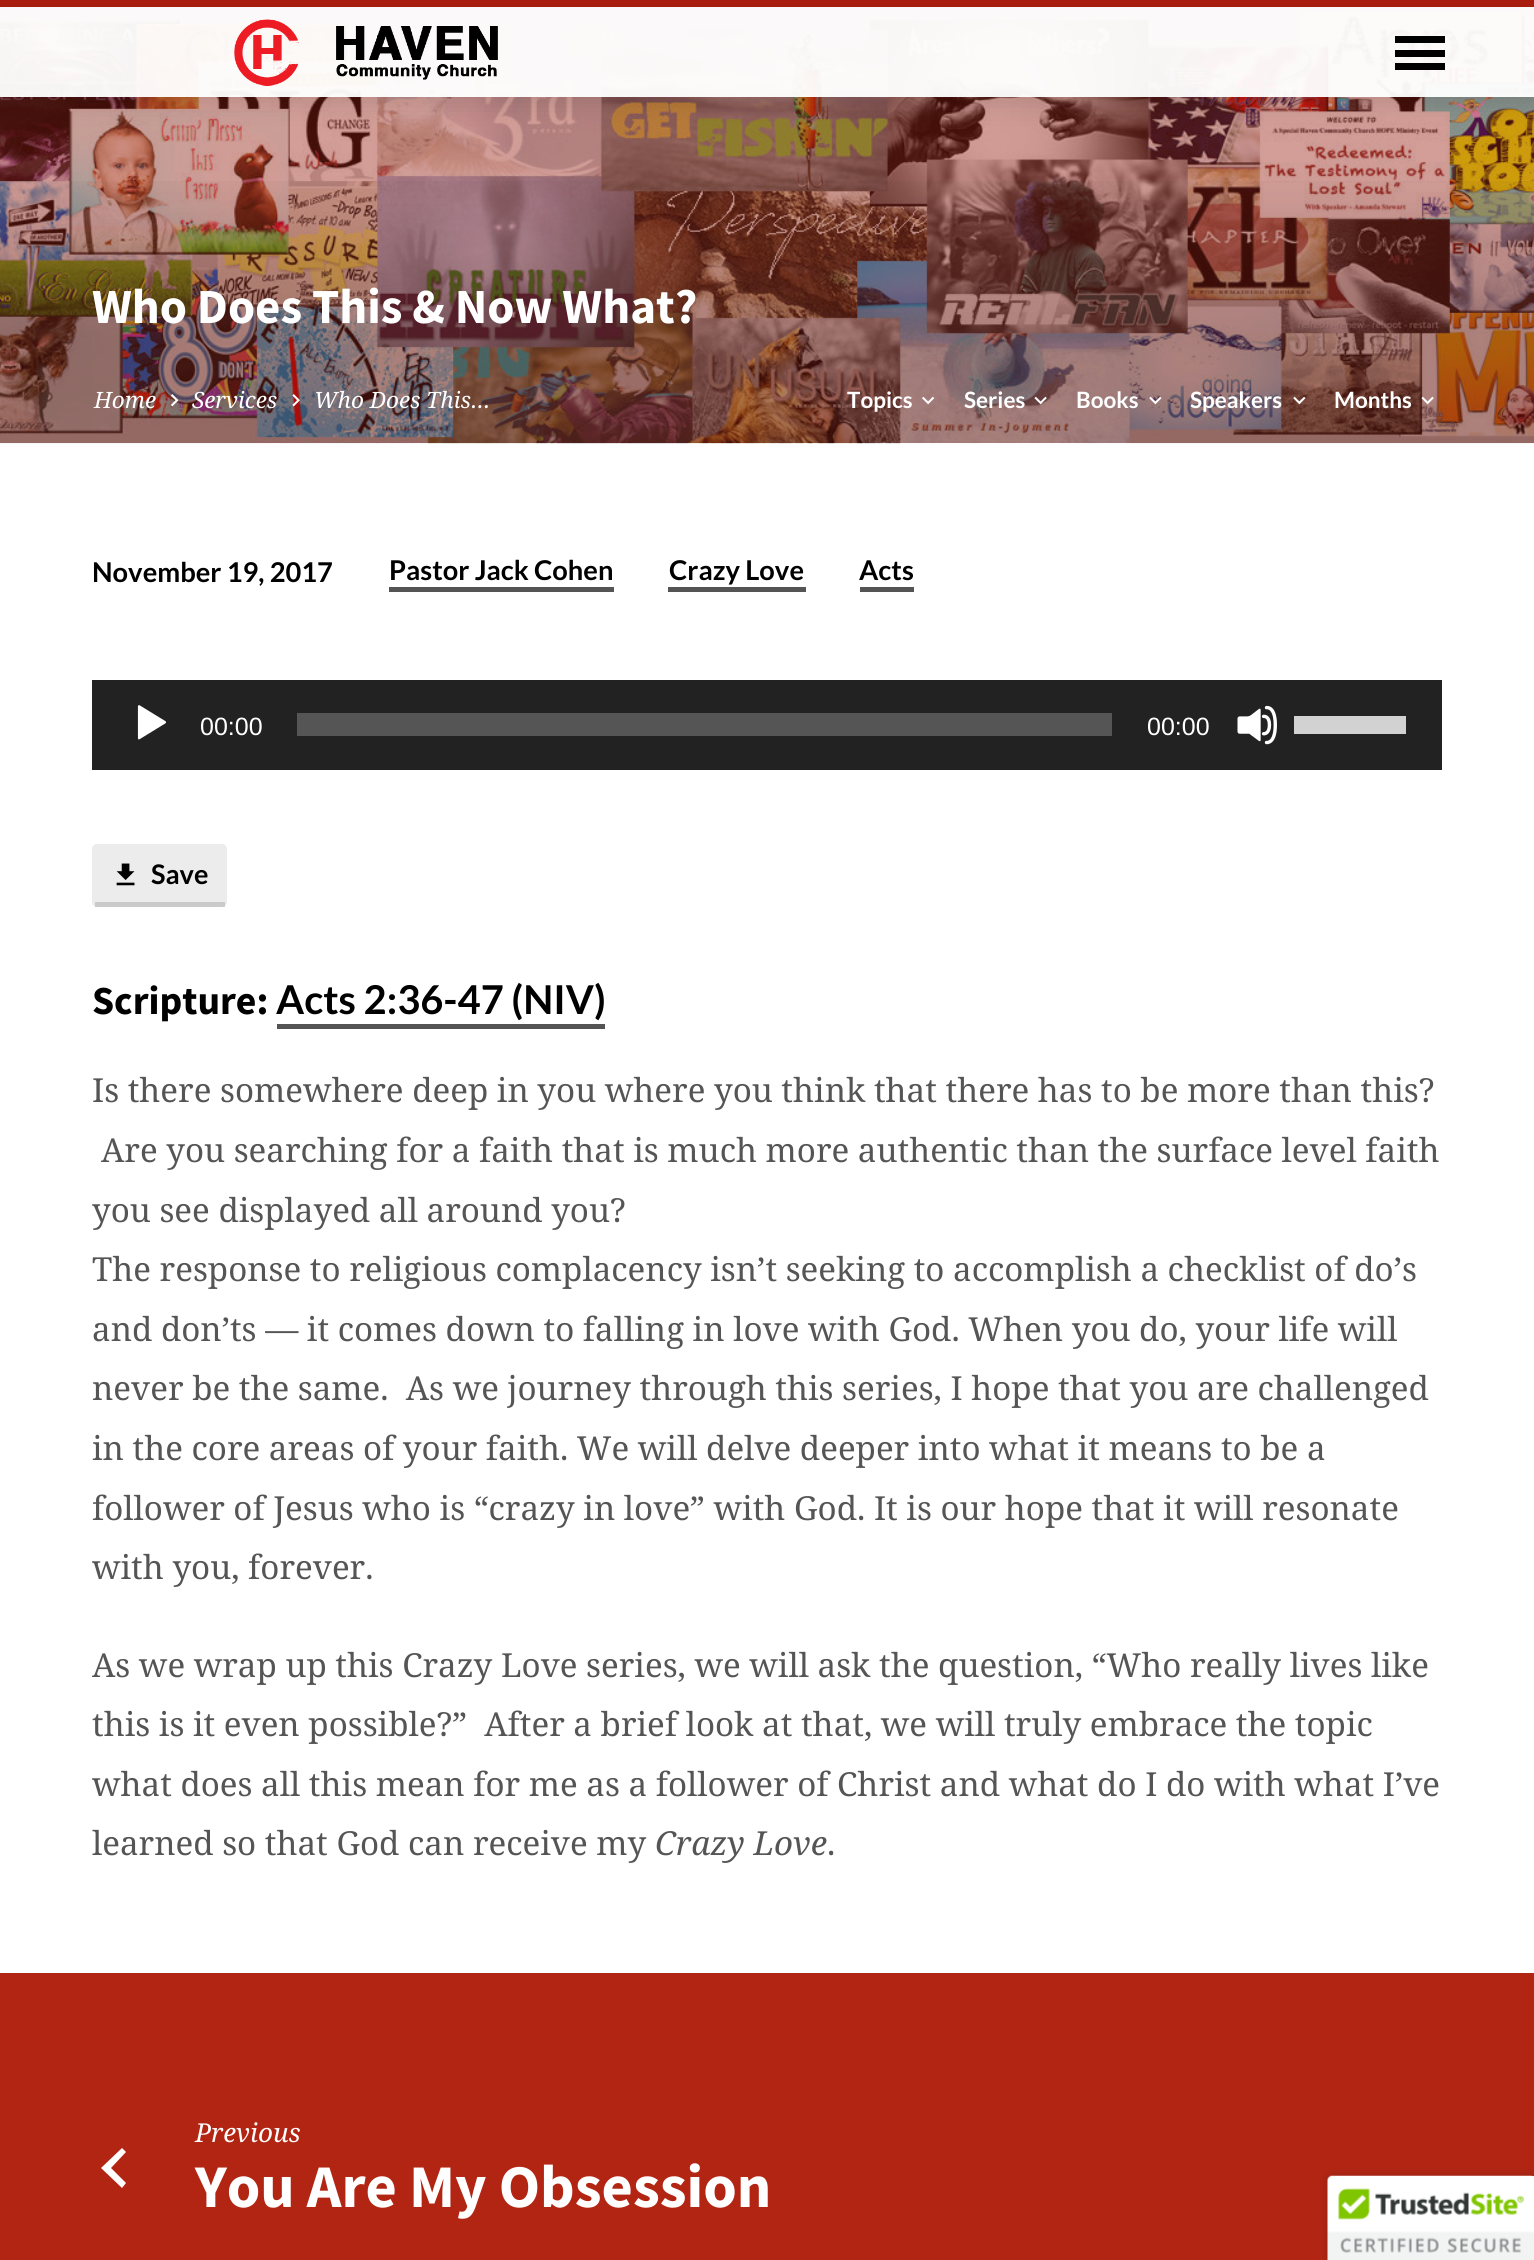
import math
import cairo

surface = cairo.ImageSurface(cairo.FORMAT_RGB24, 1534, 2260)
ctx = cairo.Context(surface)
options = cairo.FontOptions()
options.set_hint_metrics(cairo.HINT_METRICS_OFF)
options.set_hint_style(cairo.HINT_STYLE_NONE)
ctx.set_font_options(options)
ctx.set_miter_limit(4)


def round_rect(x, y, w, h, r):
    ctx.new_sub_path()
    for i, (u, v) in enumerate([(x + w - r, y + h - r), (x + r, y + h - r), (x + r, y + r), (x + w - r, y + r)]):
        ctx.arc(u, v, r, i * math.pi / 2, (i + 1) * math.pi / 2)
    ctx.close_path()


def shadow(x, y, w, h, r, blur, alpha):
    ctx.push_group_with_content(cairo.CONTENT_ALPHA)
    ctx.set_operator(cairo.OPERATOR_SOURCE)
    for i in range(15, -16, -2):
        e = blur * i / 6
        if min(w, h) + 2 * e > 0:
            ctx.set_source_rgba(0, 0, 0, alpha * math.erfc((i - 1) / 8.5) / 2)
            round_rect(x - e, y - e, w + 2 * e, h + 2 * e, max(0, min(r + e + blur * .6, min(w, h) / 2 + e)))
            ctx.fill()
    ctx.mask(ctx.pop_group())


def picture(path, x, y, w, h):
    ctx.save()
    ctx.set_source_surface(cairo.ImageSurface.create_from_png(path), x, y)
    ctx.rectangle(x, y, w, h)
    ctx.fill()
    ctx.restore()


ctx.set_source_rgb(1, 1, 1)
ctx.paint()
ctx.set_source_rgb(0.686, 0.118, 0.055)
ctx.rectangle(0, 0, 1534, 7)
ctx.fill()
ctx.set_source_rgb(0.659, 0.137, 0.075)
ctx.rectangle(0, 7, 1534, 436)
ctx.fill()
picture("img2.png", 0, 7, 1534, 437)
ctx.set_source_rgba(1, 1, 1, 0.95)
ctx.rectangle(0, 7, 1534, 90)
ctx.fill()
ctx.save()
ctx.set_fill_rule(cairo.FILL_RULE_EVEN_ODD)
ctx.new_path()
ctx.move_to(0, 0)
ctx.line_to(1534, 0)
ctx.line_to(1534, 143)
ctx.line_to(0, 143)
ctx.close_path()
ctx.move_to(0, 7)
ctx.line_to(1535, 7)
ctx.line_to(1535, 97)
ctx.line_to(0, 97)
ctx.close_path()
ctx.clip()
ctx.set_source_rgb(0, 0, 0)
shadow(0, 11, 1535, 90, 0, 13.5, 0.14)
ctx.restore()
picture("img1.png", 234, 19, 264, 67)
ctx.set_source_rgb(0, 0, 0)
ctx.rectangle(1395, 36, 50, 7)
ctx.fill()
ctx.rectangle(1395, 50, 50, 7)
ctx.fill()
ctx.rectangle(1395, 63, 50, 7)
ctx.fill()
gradient = cairo.LinearGradient(767, 0, 767, 443)
gradient.add_color_stop_rgba(0, 0, 0, 0, 0)
gradient.add_color_stop_rgba(0.36, 0, 0, 0, 0)
gradient.add_color_stop_rgba(0.76, 0, 0, 0, 0.18)
gradient.add_color_stop_rgba(1, 0, 0, 0, 0.18)
ctx.set_source(gradient)
ctx.rectangle(0, 181, 1534, 262)
ctx.fill()
ctx.select_font_face("Source Sans Pro", cairo.FONT_SLANT_NORMAL, cairo.FONT_WEIGHT_BOLD)
ctx.set_font_size(49)
ctx.set_source_rgb(1, 1, 1)
ctx.move_to(92, 323)
ctx.show_text("Who Does This & Now What?")
ctx.select_font_face("Noto Serif", cairo.FONT_SLANT_ITALIC)
ctx.set_font_size(22.5)
ctx.move_to(94, 408)
ctx.show_text("Home")
picture("img3.png", 170, 394, 9, 13)
ctx.move_to(192, 408)
ctx.show_text("Services")
picture("img4.png", 292, 394, 8, 13)
ctx.move_to(314, 408)
ctx.show_text("Who Does This…")
ctx.select_font_face("Lato", cairo.FONT_SLANT_NORMAL, cairo.FONT_WEIGHT_BOLD)
ctx.move_to(847, 408)
ctx.show_text("Topics")
picture("img5.png", 922, 396, 13, 9)
ctx.move_to(964, 408)
ctx.show_text("Series")
picture("img6.png", 1034, 396, 13, 9)
ctx.move_to(1076, 408)
ctx.show_text("Books")
picture("img7.png", 1149, 396, 13, 9)
ctx.move_to(1190, 408)
ctx.show_text("Speakers")
picture("img8.png", 1293, 396, 13, 9)
ctx.move_to(1334, 408)
ctx.show_text("Months")
picture("img9.png", 1421, 396, 13, 9)
ctx.set_font_size(27.25)
ctx.set_source_rgb(0, 0, 0)
ctx.move_to(92, 582)
ctx.show_text("November 19, 2017")
ctx.move_to(389, 580)
ctx.show_text("Pastor Jack Cohen")
ctx.set_source_rgb(0.329, 0.329, 0.329)
ctx.rectangle(389, 587, 225, 5)
ctx.fill()
ctx.set_source_rgb(0, 0, 0)
ctx.move_to(669, 580)
ctx.show_text("Crazy Love")
ctx.set_source_rgb(0.329, 0.329, 0.329)
ctx.rectangle(668, 587, 138, 5)
ctx.fill()
ctx.set_source_rgb(0, 0, 0)
ctx.move_to(859, 580)
ctx.show_text("Acts")
ctx.set_source_rgb(0.329, 0.329, 0.329)
ctx.rectangle(860, 587, 54, 5)
ctx.fill()
ctx.set_source_rgb(0.133, 0.133, 0.133)
ctx.rectangle(92, 680, 1350, 90)
ctx.fill()
picture("img10.png", 137, 705, 29, 35)
ctx.select_font_face("Liberation Sans")
ctx.set_font_size(25)
ctx.set_source_rgb(1, 1, 1)
ctx.move_to(200, 735)
ctx.show_text("00:00")
ctx.set_source_rgb(0.333, 0.333, 0.333)
ctx.rectangle(297, 713, 815, 23)
ctx.fill()
ctx.set_source_rgb(1, 1, 1)
ctx.move_to(1147, 735)
ctx.show_text("00:00")
picture("img11.png", 1237, 705, 40, 40)
ctx.set_source_rgb(0.824, 0.824, 0.824)
ctx.rectangle(1294, 716, 112, 18)
ctx.fill()
ctx.set_source_rgb(0.922, 0.922, 0.922)
round_rect(92, 844, 135, 63, 5)
ctx.fill()
ctx.set_source_rgba(0.196, 0.196, 0.196, 0.18)
ctx.rectangle(95, 902, 130, 5)
ctx.fill()
picture("img12.png", 116, 863, 19, 23)
ctx.select_font_face("Lato", cairo.FONT_SLANT_NORMAL, cairo.FONT_WEIGHT_BOLD)
ctx.set_font_size(27)
ctx.set_source_rgb(0, 0, 0)
ctx.move_to(151, 884)
ctx.show_text("Save")
ctx.select_font_face("Source Sans Pro", cairo.FONT_SLANT_NORMAL, cairo.FONT_WEIGHT_BOLD)
ctx.set_font_size(39.75)
ctx.move_to(92, 1014)
ctx.show_text("Scripture:")
ctx.select_font_face("Lato", cairo.FONT_SLANT_NORMAL, cairo.FONT_WEIGHT_BOLD)
ctx.move_to(276, 1014)
ctx.show_text("Acts 2:36-47 (NIV)")
ctx.set_source_rgb(0.329, 0.329, 0.329)
ctx.rectangle(277, 1024, 328, 5)
ctx.fill()
ctx.select_font_face("Noto Serif")
ctx.set_font_size(33.1)
ctx.set_source_rgb(0.333, 0.333, 0.333)
ctx.move_to(92, 1102)
ctx.show_text("Is there somewhere deep in you where you think that there has to be more than this?")
ctx.move_to(101, 1162)
ctx.show_text("Are you searching for a faith that is much more authentic than the surface level faith")
ctx.move_to(92, 1222)
ctx.show_text("you see displayed all around you?")
ctx.move_to(92, 1281)
ctx.show_text("The response to religious complacency isn’t seeking to accomplish a checklist of do’s")
ctx.move_to(92, 1341)
ctx.show_text("and don’ts — it comes down to falling in love with God. When you do, your life will")
ctx.move_to(92, 1400)
ctx.show_text("never be the same.  As we journey through this series, I hope that you are challenged")
ctx.move_to(92, 1460)
ctx.show_text("in the core areas of your faith. We will delve deeper into what it means to be a")
ctx.move_to(92, 1520)
ctx.show_text("follower of Jesus who is “crazy in love” with God. It is our hope that it will resonate")
ctx.move_to(92, 1579)
ctx.show_text("with you, forever.")
ctx.move_to(92, 1677)
ctx.show_text("As we wrap up this Crazy Love series, we will ask the question, “Who really lives like")
ctx.move_to(92, 1736)
ctx.show_text("this is it even possible?”  After a brief look at that, we will truly embrace the topic")
ctx.move_to(92, 1796)
ctx.show_text("what does all this mean for me as a follower of Christ and what do I do with what I’ve")
ctx.move_to(92, 1855)
ctx.show_text("learned so that God can receive my")
ctx.select_font_face("Noto Serif", cairo.FONT_SLANT_ITALIC)
ctx.move_to(655, 1855)
ctx.show_text("Crazy Love")
ctx.select_font_face("Noto Serif")
ctx.move_to(827, 1855)
ctx.show_text(".")
ctx.set_source_rgb(0.702, 0.145, 0.078)
ctx.rectangle(0, 1973, 1534, 287)
ctx.fill()
ctx.set_source_rgb(1, 1, 1)
ctx.new_path()
ctx.move_to(126, 2183)
ctx.line_to(111, 2168)
ctx.line_to(126, 2152)
ctx.line_to(122, 2148)
ctx.line_to(101, 2168)
ctx.line_to(122, 2188)
ctx.close_path()
ctx.fill()
ctx.select_font_face("Noto Serif", cairo.FONT_SLANT_ITALIC)
ctx.set_font_size(26)
ctx.move_to(195, 2142)
ctx.show_text("Previous")
ctx.select_font_face("Source Sans Pro", cairo.FONT_SLANT_NORMAL, cairo.FONT_WEIGHT_BOLD)
ctx.set_font_size(60.5)
ctx.move_to(195, 2207)
ctx.show_text("You Are My Obsession")
ctx.set_source_rgb(0, 0, 0)
shadow(1328, 2176, 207, 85, 5, 5.5, 0.2)
ctx.set_source_rgb(1, 1, 1)
ctx.new_path()
ctx.move_to(1333, 2176)
ctx.line_to(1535, 2176)
ctx.line_to(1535, 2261)
ctx.line_to(1328, 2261)
ctx.line_to(1328, 2181)
ctx.curve_to(1328, 2178, 1330, 2176, 1333, 2176)
ctx.close_path()
ctx.fill()
picture("img13.png", 1327, 2175, 207, 85)
surface.write_to_png("page.png")
